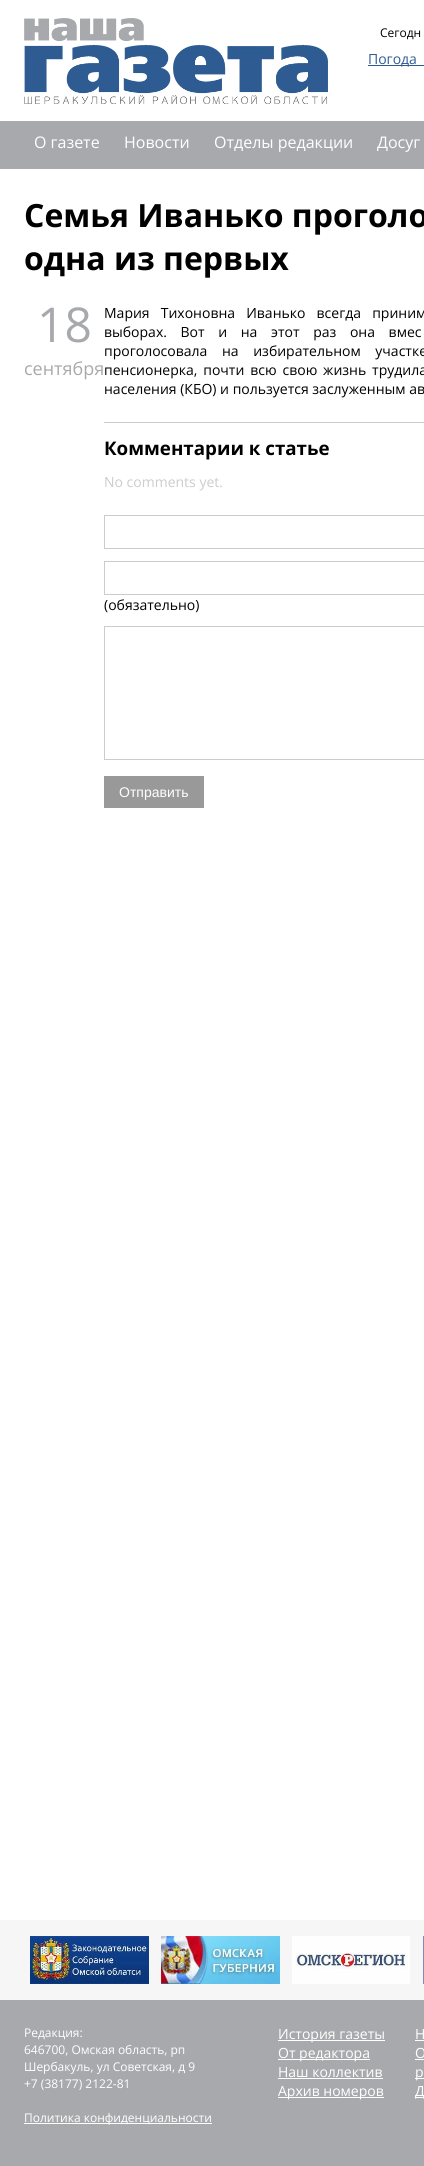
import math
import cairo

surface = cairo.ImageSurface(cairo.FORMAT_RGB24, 424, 2166)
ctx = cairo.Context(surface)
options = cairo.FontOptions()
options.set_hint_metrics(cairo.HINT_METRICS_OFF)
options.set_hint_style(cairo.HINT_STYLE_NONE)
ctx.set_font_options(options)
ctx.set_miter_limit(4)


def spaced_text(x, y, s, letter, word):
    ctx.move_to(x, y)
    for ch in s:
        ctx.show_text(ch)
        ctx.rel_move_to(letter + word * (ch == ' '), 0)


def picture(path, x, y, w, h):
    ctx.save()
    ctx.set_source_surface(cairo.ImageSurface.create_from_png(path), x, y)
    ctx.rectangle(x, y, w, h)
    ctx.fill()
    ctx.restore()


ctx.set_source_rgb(1, 1, 1)
ctx.paint()
picture("img1.png", 24, 18, 304, 86)
ctx.select_font_face("Open Sans")
ctx.set_font_size(12)
ctx.set_source_rgb(0, 0, 0)
ctx.move_to(380, 37)
ctx.show_text("Сегодн")
ctx.set_source_rgb(0.18, 0.357, 0.573)
ctx.rectangle(368, 65, 56, 1)
ctx.fill()
ctx.set_font_size(14)
ctx.move_to(368, 64)
ctx.show_text("Погода")
ctx.set_source_rgb(0.655, 0.663, 0.675)
ctx.rectangle(0, 121, 424, 48)
ctx.fill()
ctx.set_font_size(16)
ctx.set_source_rgb(1, 1, 1)
ctx.move_to(34, 148)
ctx.show_text("О газете")
ctx.move_to(124, 148)
ctx.show_text("Новости")
ctx.move_to(214, 148)
ctx.show_text("Отделы редакции")
ctx.move_to(377, 148)
ctx.show_text("Досуг")
ctx.select_font_face("Open Sans", cairo.FONT_SLANT_NORMAL, cairo.FONT_WEIGHT_BOLD)
ctx.set_font_size(32)
ctx.set_source_rgb(0, 0, 0)
ctx.move_to(24, 227)
ctx.show_text("Семья Иванько проголо")
ctx.move_to(24, 270)
ctx.show_text("одна из первых")
ctx.select_font_face("Open Sans")
ctx.set_font_size(48)
ctx.set_source_rgb(0.655, 0.663, 0.675)
ctx.move_to(37, 342)
ctx.show_text("18")
ctx.set_font_size(18)
ctx.move_to(24, 375)
ctx.show_text("сентября")
ctx.set_font_size(14)
ctx.set_source_rgb(0, 0, 0)
spaced_text(104, 318, "Мария Тихоновна Иванько всегда приним", 0, 7.5)
spaced_text(104, 337, "выборах. Вот и на этот раз она вмес", 0, 10)
spaced_text(104, 356, "проголосовала на избирательном участке", 0, 11)
spaced_text(104, 375, "пенсионерка, почти всю свою жизнь трудила", 0, 2.25)
ctx.move_to(104, 394)
ctx.show_text("населения (КБО) и пользуется заслуженным ав")
ctx.set_source_rgb(0.8, 0.8, 0.8)
ctx.rectangle(104, 422, 320, 1)
ctx.fill()
ctx.select_font_face("Open Sans", cairo.FONT_SLANT_NORMAL, cairo.FONT_WEIGHT_BOLD)
ctx.set_font_size(18.75)
ctx.set_source_rgb(0, 0, 0)
ctx.move_to(104, 455)
ctx.show_text("Комментарии к статье")
ctx.select_font_face("Open Sans")
ctx.set_font_size(14)
ctx.set_source_rgb(0.8, 0.8, 0.8)
ctx.move_to(104, 487)
ctx.show_text("No comments yet.")
ctx.rectangle(104.5, 515.5, 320, 33)
ctx.set_line_width(1)
ctx.stroke()
ctx.rectangle(104.5, 561.5, 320, 33)
ctx.stroke()
ctx.set_source_rgb(0, 0, 0)
ctx.move_to(104, 610)
ctx.show_text("(обязательно)")
ctx.rectangle(104.5, 626.5, 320, 133)
ctx.set_source_rgb(0.8, 0.8, 0.8)
ctx.stroke()
ctx.set_source_rgb(0.6, 0.6, 0.6)
ctx.rectangle(104, 776, 100, 32)
ctx.fill()
ctx.select_font_face("Liberation Sans")
ctx.set_source_rgb(1, 1, 1)
ctx.move_to(119, 797)
ctx.show_text("Отправить")
ctx.set_source_rgb(0.655, 0.663, 0.675)
ctx.rectangle(0, 2000, 424, 166)
ctx.fill()
ctx.set_source_rgb(0.961, 0.961, 0.961)
ctx.rectangle(0, 1920, 424, 80)
ctx.fill()
picture("img2.png", 30, 1936, 119, 48)
picture("img3.png", 161, 1936, 119, 48)
picture("img4.png", 292, 1936, 118, 48)
ctx.set_source_rgb(0.549, 0.514, 0.714)
ctx.rectangle(423, 1936, 1, 48)
ctx.fill()
ctx.select_font_face("Open Sans")
ctx.set_font_size(12)
ctx.set_source_rgb(1, 1, 1)
ctx.move_to(24, 2037)
ctx.show_text("Редакция:")
ctx.move_to(24, 2054)
ctx.show_text("646700, Омская область, рп")
ctx.move_to(24, 2071)
ctx.show_text("Шербакуль, ул Советская, д 9")
ctx.move_to(24, 2088)
ctx.show_text("+7 (38177) 2122-81")
ctx.rectangle(24, 2123, 188, 1)
ctx.fill()
ctx.move_to(24, 2122)
ctx.show_text("Политика конфиденциальности")
ctx.rectangle(278, 2040, 107, 1)
ctx.fill()
ctx.set_font_size(14)
ctx.move_to(278, 2039)
ctx.show_text("История газеты")
ctx.rectangle(278, 2059, 92, 1)
ctx.fill()
ctx.move_to(278, 2058)
ctx.show_text("От редактора")
ctx.move_to(278, 2077)
ctx.show_text("Наш коллектив")
ctx.rectangle(278, 2078, 105, 1)
ctx.fill()
ctx.rectangle(278, 2097, 106, 1)
ctx.fill()
ctx.move_to(278, 2096)
ctx.show_text("Архив номеров")
ctx.move_to(415, 2039)
ctx.show_text("Н")
ctx.rectangle(415, 2040, 9, 1)
ctx.fill()
ctx.move_to(415, 2058)
ctx.show_text("О")
ctx.rectangle(415, 2059, 9, 1)
ctx.fill()
ctx.rectangle(415, 2078, 9, 1)
ctx.fill()
ctx.move_to(415, 2077)
ctx.show_text("р")
ctx.rectangle(415, 2097, 9, 1)
ctx.fill()
ctx.move_to(415, 2096)
ctx.show_text("Д")
surface.write_to_png("page.png")
